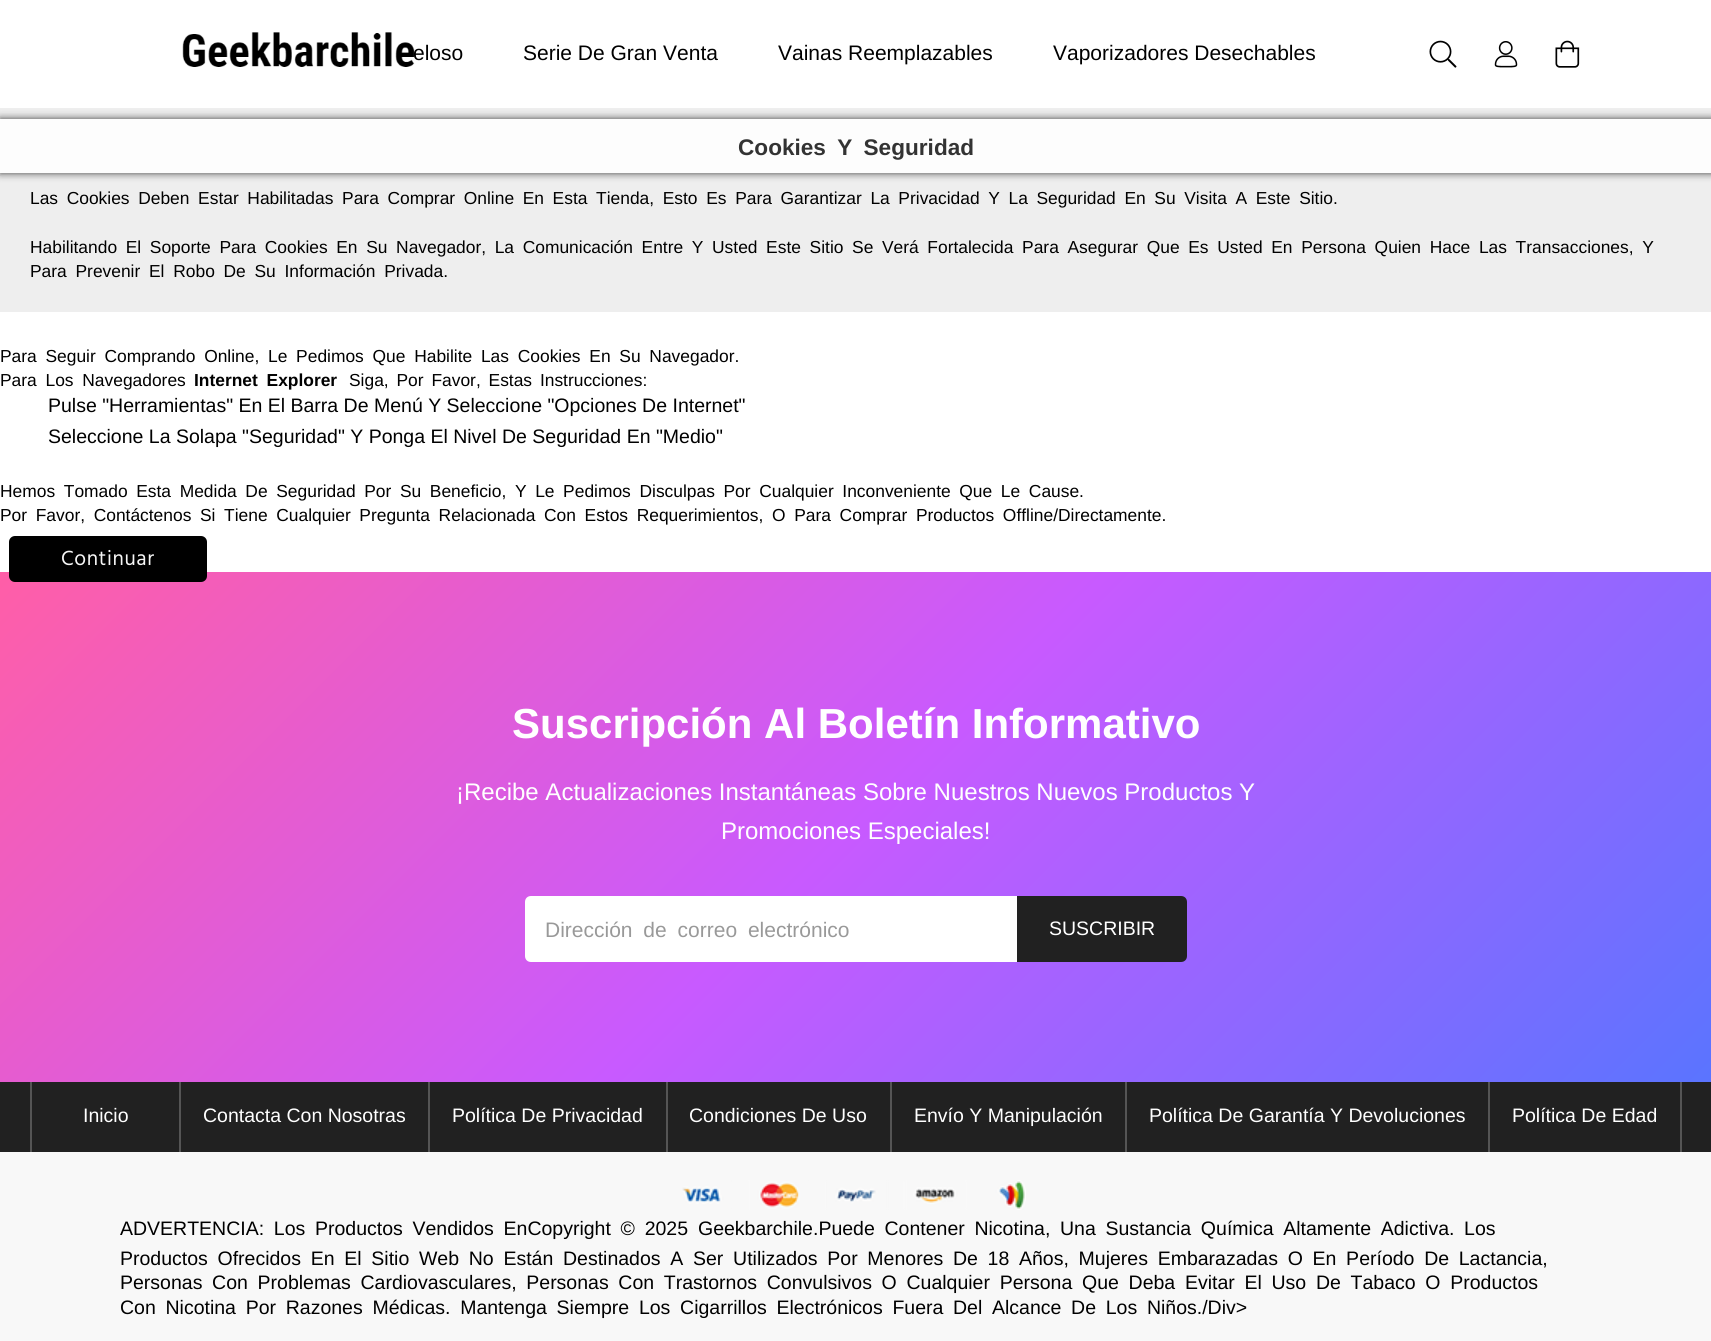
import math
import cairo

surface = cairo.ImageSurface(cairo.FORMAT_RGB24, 1711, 1341)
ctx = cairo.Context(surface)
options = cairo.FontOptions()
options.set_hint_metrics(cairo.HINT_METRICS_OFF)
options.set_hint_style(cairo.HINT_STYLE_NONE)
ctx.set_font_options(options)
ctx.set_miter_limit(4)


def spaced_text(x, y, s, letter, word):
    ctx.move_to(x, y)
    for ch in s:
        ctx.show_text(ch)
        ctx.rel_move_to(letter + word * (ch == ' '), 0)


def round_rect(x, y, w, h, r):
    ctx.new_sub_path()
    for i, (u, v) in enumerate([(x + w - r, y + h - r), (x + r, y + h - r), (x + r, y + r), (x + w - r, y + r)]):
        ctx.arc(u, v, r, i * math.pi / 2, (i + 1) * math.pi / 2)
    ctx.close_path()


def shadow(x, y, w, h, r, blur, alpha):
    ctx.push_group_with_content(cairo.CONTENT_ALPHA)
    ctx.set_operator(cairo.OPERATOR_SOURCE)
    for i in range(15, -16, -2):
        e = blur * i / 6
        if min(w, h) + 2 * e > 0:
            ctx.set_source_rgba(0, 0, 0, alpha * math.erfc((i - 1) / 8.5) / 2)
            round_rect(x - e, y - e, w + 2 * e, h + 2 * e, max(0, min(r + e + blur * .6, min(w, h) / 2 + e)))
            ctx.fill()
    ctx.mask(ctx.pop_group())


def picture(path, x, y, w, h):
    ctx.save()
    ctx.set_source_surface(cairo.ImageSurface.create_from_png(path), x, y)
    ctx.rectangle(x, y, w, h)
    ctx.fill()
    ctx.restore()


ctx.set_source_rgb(1, 1, 1)
ctx.paint()
picture("img1.png", 182, 32, 233, 35)
ctx.select_font_face("Liberation Sans")
ctx.set_font_size(21)
ctx.set_source_rgb(0, 0, 0)
ctx.move_to(413, 60)
ctx.show_text("eloso")
ctx.move_to(523, 60)
ctx.show_text("Serie De Gran Venta")
ctx.move_to(778, 60)
ctx.show_text("Vainas Reemplazables")
ctx.move_to(1053, 60)
ctx.show_text("Vaporizadores Desechables")
picture("img2.png", 1429, 40, 28, 28)
picture("img3.png", 1494, 41, 24, 27)
picture("img4.png", 1555, 40, 25, 28)
ctx.set_source_rgb(0.933, 0.933, 0.933)
ctx.rectangle(0, 108, 1711, 204)
ctx.fill()
ctx.set_source_rgb(0, 0, 0)
shadow(0, 119, 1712, 54, 0, 4, 0.75)
ctx.set_source_rgb(0.992, 0.992, 0.992)
ctx.rectangle(0, 119, 1711, 54)
ctx.fill()
ctx.select_font_face("Liberation Sans", cairo.FONT_SLANT_NORMAL, cairo.FONT_WEIGHT_BOLD)
ctx.set_font_size(22.6)
ctx.set_source_rgb(0.2, 0.2, 0.2)
spaced_text(738, 155, "Cookies Y Seguridad", 0, 5)
ctx.select_font_face("Liberation Sans")
ctx.set_font_size(17.4)
ctx.set_source_rgb(0, 0, 0)
spaced_text(30, 204, "Las Cookies Deben Estar Habilitadas Para Comprar Online En Esta Tienda, Esto Es Para Garantizar La Privacidad Y La Seguridad En Su Visita A Este Sitio.", 0, 3.8)
spaced_text(30, 253, "Habilitando El Soporte Para Cookies En Su Navegador, La Comunicación Entre Y Usted Este Sitio Se Verá Fortalecida Para Asegurar Que Es Usted En Persona Quien Hace Las Transacciones, Y", 0, 3.8)
spaced_text(30, 277, "Para Prevenir El Robo De Su Información Privada.", 0, 3.9)
spaced_text(0, 362, "Para Seguir Comprando Online, Le Pedimos Que Habilite Las Cookies En Su Navegador.", 0, 3.9)
spaced_text(0, 386, "Para Los Navegadores", 0, 3.9)
ctx.select_font_face("Liberation Sans", cairo.FONT_SLANT_NORMAL, cairo.FONT_WEIGHT_BOLD)
spaced_text(194, 386, "Internet Explorer", 0, 3.9)
ctx.select_font_face("Liberation Sans")
spaced_text(349, 386, "Siga, Por Favor, Estas Instrucciones:", 0, 3)
ctx.set_font_size(19.5)
ctx.move_to(48, 412)
ctx.show_text("Pulse \"Herramientas\" En El Barra De Menú Y Seleccione \"Opciones De Internet\"")
ctx.move_to(48, 443)
ctx.show_text("Seleccione La Solapa \"Seguridad\" Y Ponga El Nivel De Seguridad En \"Medio\"")
ctx.set_font_size(17.4)
spaced_text(0, 497, "Hemos Tomado Esta Medida De Seguridad Por Su Beneficio, Y Le Pedimos Disculpas Por Cualquier Inconveniente Que Le Cause.", 0, 3.8)
spaced_text(0, 521, "Por Favor, Contáctenos Si Tiene Cualquier Pregunta Relacionada Con Estos Requerimientos, O Para Comprar Productos Offline/Directamente.", 0, 3.8)
gradient = cairo.LinearGradient(300, 271, 1411, 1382)
gradient.add_color_stop_rgba(0, 1, 0.369, 0.655, 1)
gradient.add_color_stop_rgba(0.5, 0.784, 0.353, 1, 1)
gradient.add_color_stop_rgba(1, 0.353, 0.455, 1, 1)
ctx.set_source(gradient)
ctx.rectangle(0, 572, 1711, 510)
ctx.fill()
ctx.set_source_rgb(0, 0, 0)
round_rect(9, 536, 198, 46, 6)
ctx.fill()
ctx.select_font_face("Hind")
ctx.set_font_size(21)
ctx.set_source_rgb(0.961, 0.961, 0.961)
spaced_text(61, 565, "Continuar", 0.6, 0)
ctx.select_font_face("Liberation Sans", cairo.FONT_SLANT_NORMAL, cairo.FONT_WEIGHT_BOLD)
ctx.set_font_size(42)
ctx.set_source_rgb(1, 1, 1)
ctx.move_to(512, 738)
ctx.show_text("Suscripción Al Boletín Informativo")
ctx.select_font_face("Liberation Sans")
ctx.set_font_size(24)
ctx.move_to(456, 800)
ctx.show_text("¡Recibe Actualizaciones Instantáneas Sobre Nuestros Nuevos Productos Y")
ctx.move_to(721, 839)
ctx.show_text("Promociones Especiales!")
ctx.new_path()
ctx.move_to(531, 896)
ctx.line_to(1017, 896)
ctx.line_to(1017, 962)
ctx.line_to(531, 962)
ctx.curve_to(527.5, 962, 525, 959.5, 525, 956)
ctx.line_to(525, 902)
ctx.curve_to(525, 898.5, 527.5, 896, 531, 896)
ctx.close_path()
ctx.fill()
ctx.set_font_size(21)
ctx.set_source_rgb(0.6, 0.6, 0.6)
spaced_text(545, 937, "Dirección de correo electrónico", 0, 5)
ctx.set_source_rgb(0.129, 0.129, 0.129)
ctx.new_path()
ctx.move_to(1017, 896)
ctx.line_to(1181, 896)
ctx.curve_to(1184.5, 896, 1187, 898.5, 1187, 902)
ctx.line_to(1187, 956)
ctx.curve_to(1187, 959.5, 1184.5, 962, 1181, 962)
ctx.line_to(1017, 962)
ctx.close_path()
ctx.fill()
ctx.set_font_size(19.5)
ctx.set_source_rgb(1, 1, 1)
ctx.move_to(1049, 935)
ctx.show_text("SUSCRIBIR")
ctx.set_source_rgb(0.129, 0.129, 0.129)
ctx.rectangle(0, 1082, 1711, 70)
ctx.fill()
ctx.set_source_rgb(0.333, 0.333, 0.333)
ctx.rectangle(30, 1082, 2, 70)
ctx.fill()
ctx.set_source_rgb(1, 1, 1)
ctx.move_to(83, 1122)
ctx.show_text("Inicio")
ctx.set_source_rgb(0.333, 0.333, 0.333)
ctx.rectangle(179, 1082, 2, 70)
ctx.fill()
ctx.set_source_rgb(1, 1, 1)
ctx.move_to(203, 1122)
ctx.show_text("Contacta Con Nosotras")
ctx.set_source_rgb(0.333, 0.333, 0.333)
ctx.rectangle(428, 1082, 2, 70)
ctx.fill()
ctx.set_source_rgb(1, 1, 1)
ctx.move_to(452, 1122)
ctx.show_text("Política De Privacidad")
ctx.set_source_rgb(0.333, 0.333, 0.333)
ctx.rectangle(666, 1082, 2, 70)
ctx.fill()
ctx.set_source_rgb(1, 1, 1)
ctx.move_to(689, 1122)
ctx.show_text("Condiciones De Uso")
ctx.set_source_rgb(0.333, 0.333, 0.333)
ctx.rectangle(890, 1082, 2, 70)
ctx.fill()
ctx.set_source_rgb(1, 1, 1)
ctx.move_to(914, 1122)
ctx.show_text("Envío Y Manipulación")
ctx.set_source_rgb(0.333, 0.333, 0.333)
ctx.rectangle(1125, 1082, 2, 70)
ctx.fill()
ctx.set_source_rgb(1, 1, 1)
ctx.move_to(1149, 1122)
ctx.show_text("Política De Garantía Y Devoluciones")
ctx.set_source_rgb(0.333, 0.333, 0.333)
ctx.rectangle(1680, 1082, 2, 70)
ctx.fill()
ctx.rectangle(1488, 1082, 2, 70)
ctx.fill()
ctx.set_source_rgb(1, 1, 1)
ctx.move_to(1512, 1122)
ctx.show_text("Política De Edad")
ctx.set_source_rgb(0.969, 0.969, 0.969)
ctx.rectangle(0, 1152, 1711, 189)
ctx.fill()
picture("img5.png", 682, 1180, 344, 30)
ctx.set_source_rgb(0, 0, 0)
spaced_text(120, 1235, "ADVERTENCIA: Los Productos Vendidos EnCopyright © 2025", 0, 4.3)
ctx.move_to(698, 1235)
ctx.show_text("Geekbarchile")
spaced_text(813, 1235, ".Puede Contener Nicotina, Una Sustancia Química Altamente Adictiva. Los", 0, 4.3)
spaced_text(120, 1265, "Productos Ofrecidos En El Sitio Web No Están Destinados A Ser Utilizados Por Menores De 18 Años, Mujeres Embarazadas O En Período De Lactancia,", 0, 4.3)
spaced_text(120, 1289, "Personas Con Problemas Cardiovasculares, Personas Con Trastornos Convulsivos O Cualquier Persona Que Deba Evitar El Uso De Tabaco O Productos", 0, 4.3)
spaced_text(120, 1314, "Con Nicotina Por Razones Médicas. Mantenga Siempre Los Cigarrillos Electrónicos Fuera Del Alcance De Los Niños./Div>", 0, 4.3)
surface.write_to_png("page.png")
